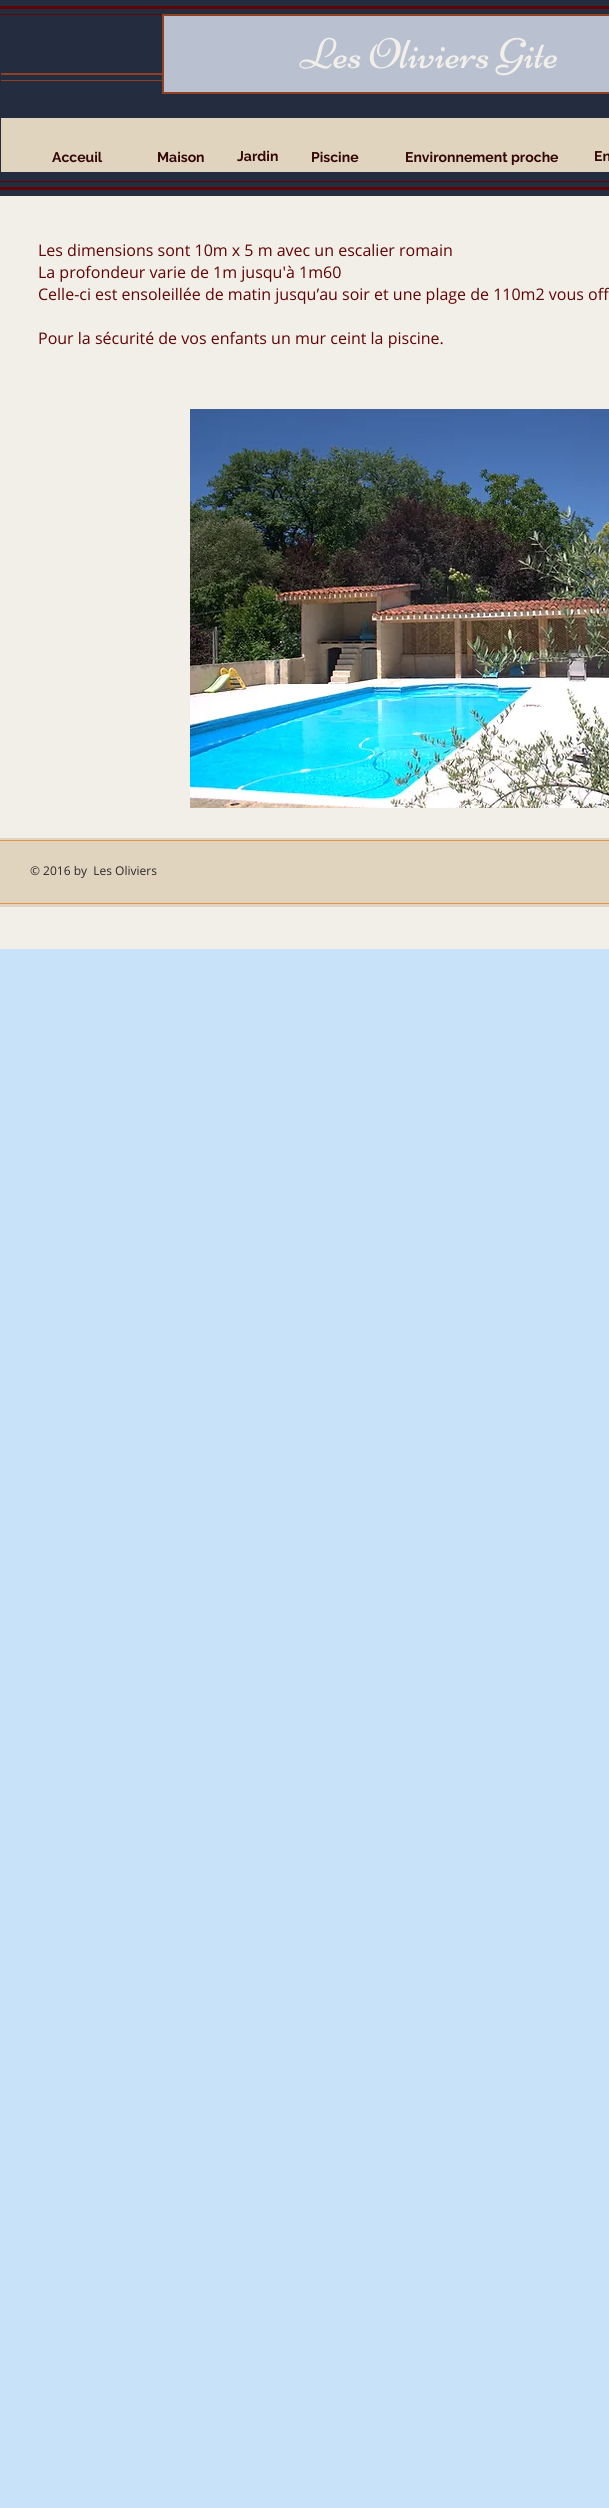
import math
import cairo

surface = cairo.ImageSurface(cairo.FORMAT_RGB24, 609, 2508)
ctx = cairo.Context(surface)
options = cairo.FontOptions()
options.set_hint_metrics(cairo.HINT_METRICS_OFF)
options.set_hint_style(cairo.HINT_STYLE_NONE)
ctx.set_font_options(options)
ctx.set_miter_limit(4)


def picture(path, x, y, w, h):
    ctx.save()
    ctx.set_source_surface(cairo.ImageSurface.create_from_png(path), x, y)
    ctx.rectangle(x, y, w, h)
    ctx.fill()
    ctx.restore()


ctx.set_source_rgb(0.78, 0.886, 0.973)
ctx.paint()
ctx.set_source_rgb(0.141, 0.176, 0.247)
ctx.rectangle(0, 0, 609, 196)
ctx.fill()
ctx.set_source_rgb(0.376, 0.02, 0.02)
ctx.rectangle(0, 6, 609, 3)
ctx.fill()
ctx.rectangle(0, 187, 609, 3)
ctx.fill()
ctx.rectangle(0, 14, 162, 1)
ctx.fill()
ctx.rectangle(0, 181, 609, 1)
ctx.fill()
ctx.set_source_rgb(0.561, 0.255, 0.125)
ctx.rectangle(1, 73, 161, 2)
ctx.fill()
ctx.rectangle(1, 80, 161, 1)
ctx.fill()
ctx.set_source_rgb(0.725, 0.753, 0.812)
ctx.rectangle(163, 15, 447, 78)
ctx.fill_preserve()
ctx.set_source_rgb(0.561, 0.255, 0.125)
ctx.stroke()
ctx.set_source_rgb(0.878, 0.831, 0.745)
ctx.rectangle(1, 118, 608, 54)
ctx.fill()
picture("img1.png", 299, 37, 258, 39)
ctx.select_font_face("Raleway", cairo.FONT_SLANT_NORMAL, cairo.FONT_WEIGHT_BOLD)
ctx.set_font_size(14)
ctx.set_source_rgb(0.2, 0.031, 0.031)
ctx.move_to(52, 162)
ctx.show_text("Acceuil")
ctx.move_to(157, 162)
ctx.show_text("Maison")
ctx.move_to(237, 161)
ctx.show_text("Jardin")
ctx.move_to(311, 162)
ctx.show_text("Piscine")
ctx.move_to(405, 162)
ctx.show_text("Environnement proche")
ctx.move_to(594, 161)
ctx.show_text("En")
ctx.set_source_rgb(0.949, 0.937, 0.914)
ctx.rectangle(0, 196, 609, 753)
ctx.fill()
ctx.select_font_face("Open Sans")
ctx.set_font_size(16)
ctx.set_source_rgb(0.376, 0.02, 0.02)
ctx.move_to(38, 256)
ctx.show_text("Les dimensions sont 10m x 5 m avec un escalier romain")
ctx.move_to(38, 278)
ctx.show_text("La profondeur varie de 1m jusqu'à 1m60")
ctx.move_to(38, 300)
ctx.show_text("Celle-ci est ensoleillée de matin jusqu’au soir et une plage de 110m2 vous off")
ctx.move_to(38, 344)
ctx.show_text("Pour la sécurité de vos enfants un mur ceint la piscine.")
picture("img2.png", 190, 409, 419, 399)
ctx.set_source_rgb(0.878, 0.831, 0.745)
ctx.rectangle(0, 838, 609, 69)
ctx.fill()
ctx.set_source_rgb(0.867, 0.592, 0.294)
ctx.rectangle(0, 840, 609, 1)
ctx.fill()
ctx.set_font_size(12)
ctx.set_source_rgb(0.169, 0.153, 0.165)
ctx.move_to(30, 875)
ctx.show_text("© 2016 by  Les Oliviers")
ctx.set_source_rgb(0.867, 0.592, 0.294)
ctx.rectangle(0, 903, 609, 1)
ctx.fill()
surface.write_to_png("page.png")
